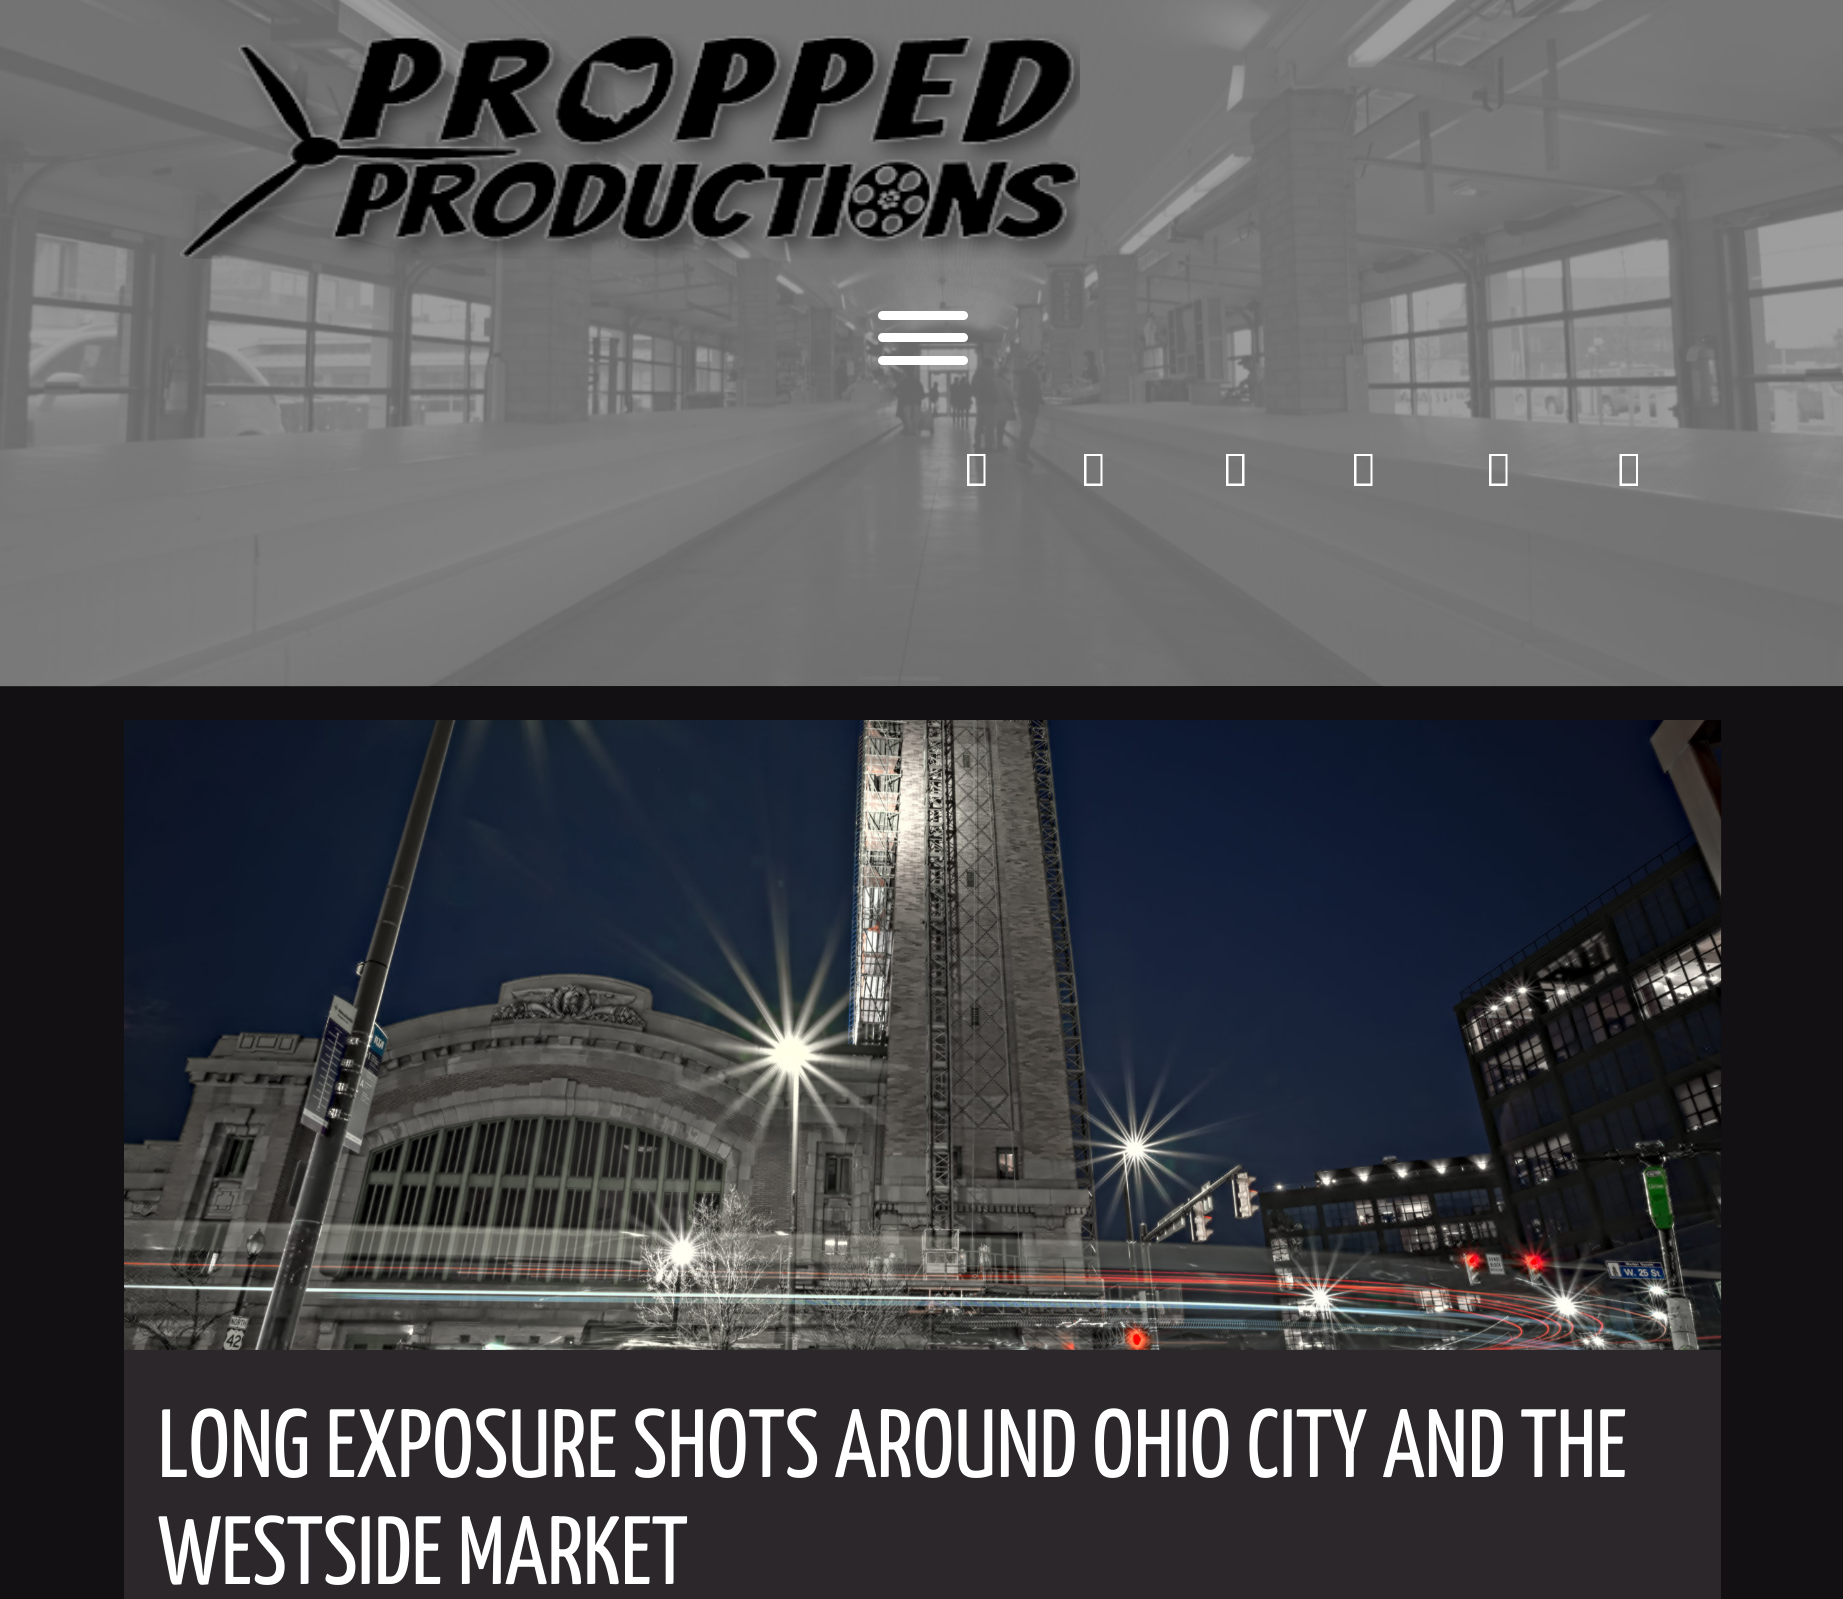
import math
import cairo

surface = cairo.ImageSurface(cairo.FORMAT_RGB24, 1843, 1599)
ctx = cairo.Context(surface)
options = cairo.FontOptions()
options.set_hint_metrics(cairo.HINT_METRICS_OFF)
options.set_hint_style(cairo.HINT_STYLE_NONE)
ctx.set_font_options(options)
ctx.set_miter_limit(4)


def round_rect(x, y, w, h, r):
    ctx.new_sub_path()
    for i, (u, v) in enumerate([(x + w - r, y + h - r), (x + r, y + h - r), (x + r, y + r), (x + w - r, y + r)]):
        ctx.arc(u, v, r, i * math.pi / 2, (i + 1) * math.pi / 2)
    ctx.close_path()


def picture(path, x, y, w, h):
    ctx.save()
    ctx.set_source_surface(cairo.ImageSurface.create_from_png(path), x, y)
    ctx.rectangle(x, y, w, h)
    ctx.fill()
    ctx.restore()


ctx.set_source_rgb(0.071, 0.063, 0.071)
ctx.paint()
picture("img1.png", 0, 0, 1843, 687)
picture("img2.png", 180, 34, 900, 225)
ctx.set_source_rgb(1, 1, 1)
round_rect(878, 356, 90, 9, 4.5)
ctx.fill()
round_rect(878, 311, 90, 9, 4.5)
ctx.fill()
round_rect(878, 333, 90, 9, 4.5)
ctx.fill()
ctx.new_path()
ctx.move_to(967, 486)
ctx.line_to(967, 454)
ctx.line_to(985.5, 454)
ctx.line_to(985.5, 486)
ctx.close_path()
ctx.move_to(969.5, 483.5)
ctx.line_to(983.5, 483.5)
ctx.line_to(983.5, 456)
ctx.line_to(969.5, 456)
ctx.close_path()
ctx.fill()
ctx.new_path()
ctx.move_to(1084, 486)
ctx.line_to(1084, 454)
ctx.line_to(1102.5, 454)
ctx.line_to(1102.5, 486)
ctx.close_path()
ctx.move_to(1086.5, 483.5)
ctx.line_to(1100.5, 483.5)
ctx.line_to(1100.5, 456)
ctx.line_to(1086.5, 456)
ctx.close_path()
ctx.fill()
ctx.new_path()
ctx.move_to(1226, 486)
ctx.line_to(1226, 454)
ctx.line_to(1244.5, 454)
ctx.line_to(1244.5, 486)
ctx.close_path()
ctx.move_to(1228.5, 483.5)
ctx.line_to(1242, 483.5)
ctx.line_to(1242, 456)
ctx.line_to(1228.5, 456)
ctx.close_path()
ctx.fill()
ctx.new_path()
ctx.move_to(1354, 486)
ctx.line_to(1354, 454)
ctx.line_to(1372.5, 454)
ctx.line_to(1372.5, 486)
ctx.close_path()
ctx.move_to(1356.5, 483.5)
ctx.line_to(1370.5, 483.5)
ctx.line_to(1370.5, 456)
ctx.line_to(1356.5, 456)
ctx.close_path()
ctx.fill()
ctx.new_path()
ctx.move_to(1489, 486)
ctx.line_to(1489, 454)
ctx.line_to(1507.5, 454)
ctx.line_to(1507.5, 486)
ctx.close_path()
ctx.move_to(1491.5, 483.5)
ctx.line_to(1505.5, 483.5)
ctx.line_to(1505.5, 456)
ctx.line_to(1491.5, 456)
ctx.close_path()
ctx.fill()
ctx.new_path()
ctx.move_to(1619.5, 486)
ctx.line_to(1619.5, 454)
ctx.line_to(1638, 454)
ctx.line_to(1638, 486)
ctx.close_path()
ctx.move_to(1622, 483.5)
ctx.line_to(1636, 483.5)
ctx.line_to(1636, 456)
ctx.line_to(1622, 456)
ctx.close_path()
ctx.fill()
ctx.set_source_rgb(0.169, 0.153, 0.169)
ctx.rectangle(124, 1349, 1597, 250)
ctx.fill()
picture("img3.png", 124, 720, 1598, 630)
ctx.select_font_face("Yanone Kaffeesatz ExtraLight")
ctx.set_font_size(96.75)
ctx.set_source_rgb(1, 1, 1)
ctx.move_to(158, 1477)
ctx.show_text("LONG EXPOSURE SHOTS AROUND OHIO CITY AND THE")
ctx.move_to(158, 1584)
ctx.show_text("WESTSIDE MARKET")
surface.write_to_png("page.png")
